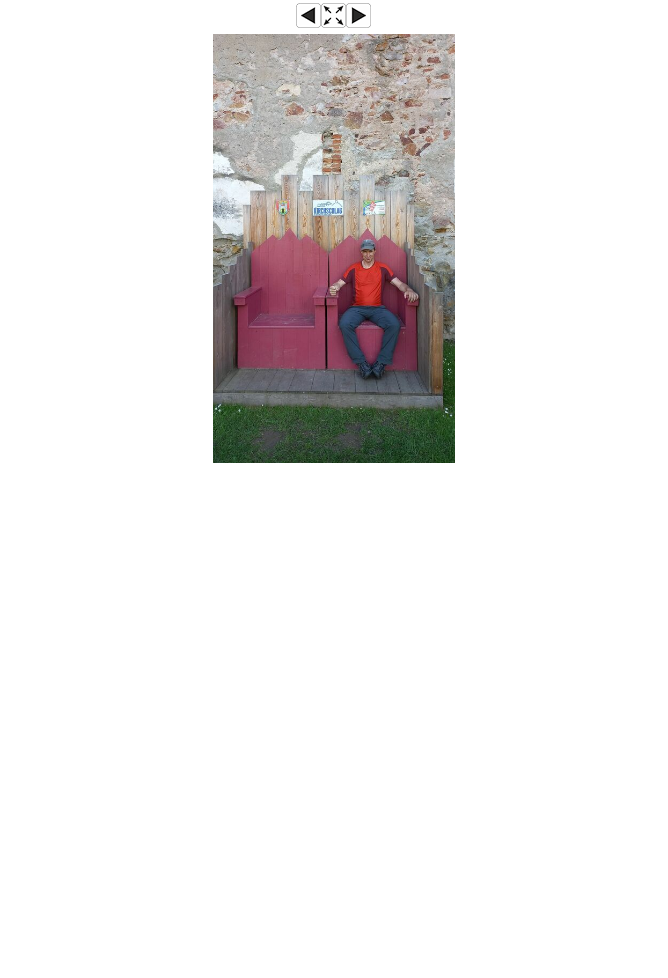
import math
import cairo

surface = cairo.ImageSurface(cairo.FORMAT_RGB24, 668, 978)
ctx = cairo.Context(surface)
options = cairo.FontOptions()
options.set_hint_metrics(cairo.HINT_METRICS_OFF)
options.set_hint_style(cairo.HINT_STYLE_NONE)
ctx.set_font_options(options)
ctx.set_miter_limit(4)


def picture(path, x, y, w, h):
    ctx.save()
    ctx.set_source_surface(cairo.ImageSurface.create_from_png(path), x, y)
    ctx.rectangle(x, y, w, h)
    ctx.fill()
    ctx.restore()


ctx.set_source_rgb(1, 1, 1)
ctx.paint()
picture("img1.png", 296, 3, 25, 25)
picture("img2.png", 321, 3, 25, 25)
picture("img3.png", 346, 3, 25, 25)
picture("img4.png", 213, 34, 242, 429)
surface.write_to_png("page.png")
